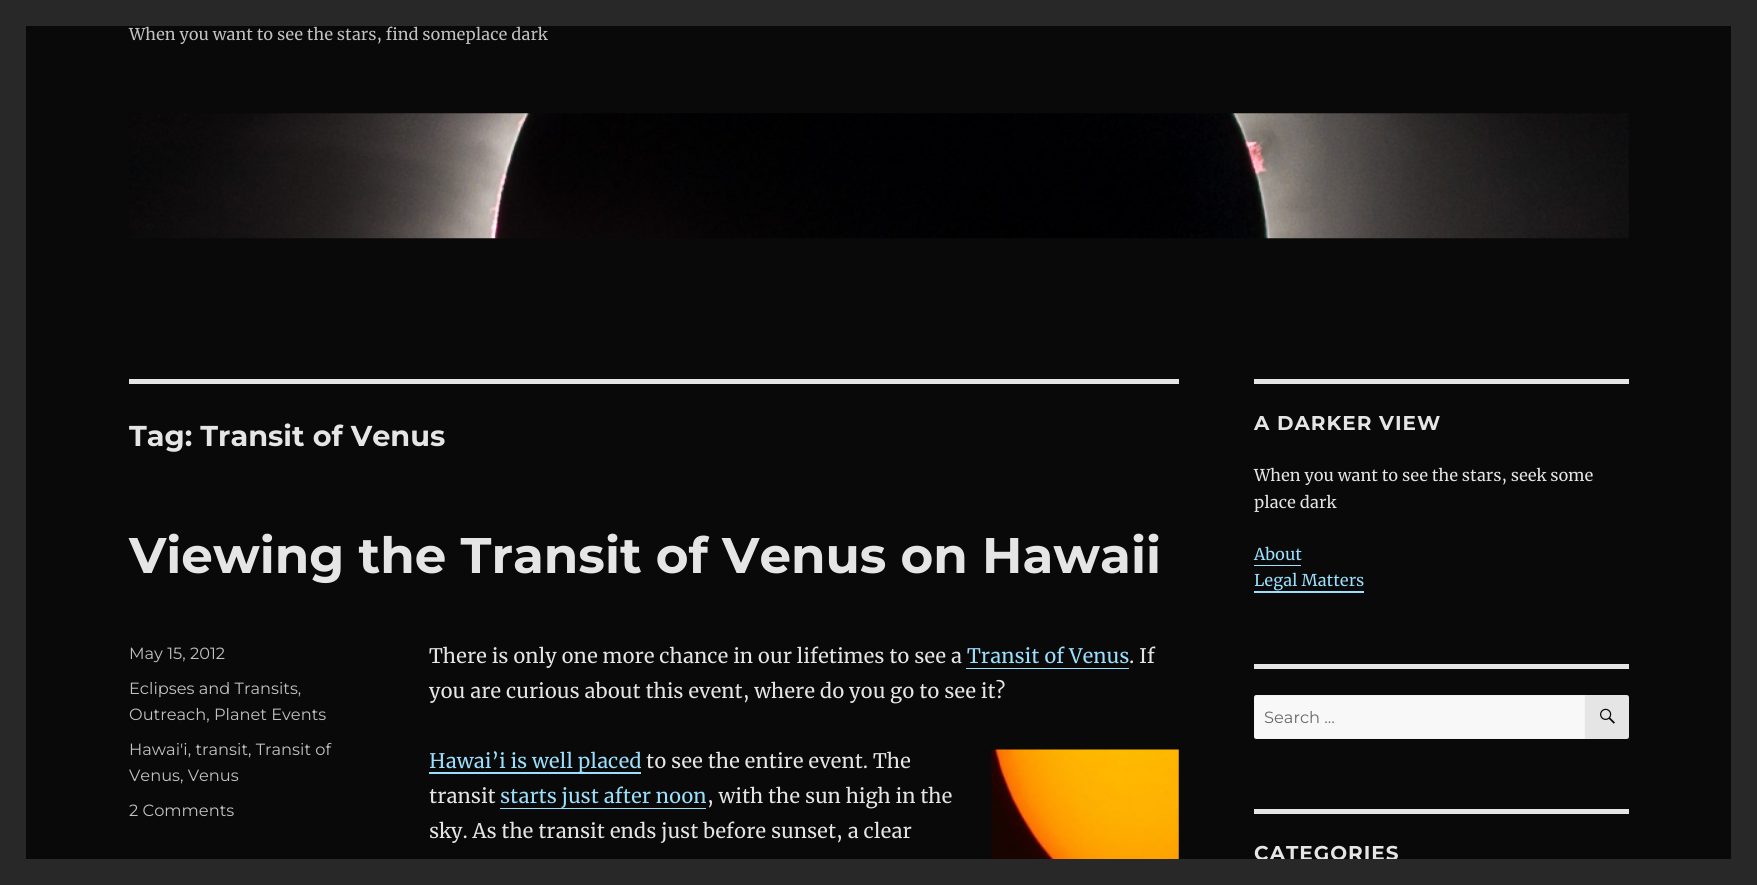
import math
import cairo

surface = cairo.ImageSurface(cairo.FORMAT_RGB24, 1757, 885)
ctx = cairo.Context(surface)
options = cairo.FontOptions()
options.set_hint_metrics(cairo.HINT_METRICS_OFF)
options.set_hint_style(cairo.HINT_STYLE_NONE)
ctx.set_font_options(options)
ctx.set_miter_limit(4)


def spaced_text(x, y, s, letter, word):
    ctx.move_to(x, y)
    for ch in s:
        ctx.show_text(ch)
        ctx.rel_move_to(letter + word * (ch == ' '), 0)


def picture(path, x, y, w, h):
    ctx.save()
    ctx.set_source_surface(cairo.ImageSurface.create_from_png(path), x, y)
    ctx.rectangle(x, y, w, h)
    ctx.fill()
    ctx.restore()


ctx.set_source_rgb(0.157, 0.157, 0.157)
ctx.paint()
ctx.set_source_rgb(0.039, 0.039, 0.039)
ctx.rectangle(26, 26, 1705, 833)
ctx.fill()
ctx.select_font_face("Merriweather")
ctx.set_font_size(16.25)
ctx.set_source_rgb(0.757, 0.757, 0.757)
ctx.move_to(129, 40)
ctx.show_text("When you want to see the stars, find someplace dark")
picture("img1.png", 129, 113, 1500, 126)
ctx.set_source_rgb(0.898, 0.898, 0.898)
ctx.rectangle(129, 379, 1050, 5)
ctx.fill()
ctx.select_font_face("Montserrat Thin")
ctx.set_font_size(28.75)
ctx.move_to(129, 446)
ctx.show_text("Tag: Transit of Venus")
ctx.set_font_size(50)
ctx.move_to(129, 573)
ctx.show_text("Viewing the Transit of Venus on Hawaii")
ctx.select_font_face("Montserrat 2 Thin")
ctx.set_font_size(16.25)
ctx.set_source_rgb(0.757, 0.757, 0.757)
ctx.move_to(129, 659)
ctx.show_text("May 15, 2012")
ctx.move_to(129, 694)
ctx.show_text("Eclipses and Transits,")
ctx.move_to(129, 720)
ctx.show_text("Outreach, Planet Events")
ctx.move_to(129, 755)
ctx.show_text("Hawai'i, transit, Transit of")
ctx.move_to(129, 781)
ctx.show_text("Venus, Venus")
ctx.move_to(129, 816)
ctx.show_text("2 Comments")
ctx.select_font_face("Merriweather")
ctx.set_font_size(20)
ctx.set_source_rgb(0.898, 0.898, 0.898)
ctx.move_to(429, 663)
ctx.show_text("There is only one more chance in our lifetimes to see a")
ctx.set_source_rgb(0.604, 0.875, 0.992)
ctx.move_to(967, 663)
ctx.show_text("Transit of Venus")
ctx.new_path()
ctx.move_to(966, 644)
ctx.line_to(966, 669)
ctx.line_to(1129, 669)
ctx.line_to(1129, 644)
ctx.line_to(1129, 668)
ctx.line_to(966, 668)
ctx.close_path()
ctx.fill()
ctx.set_source_rgb(0.898, 0.898, 0.898)
ctx.move_to(1129, 663)
ctx.show_text(". If")
ctx.move_to(429, 698)
ctx.show_text("you are curious about this event, where do you go to see it?")
ctx.set_source_rgb(0.604, 0.875, 0.992)
ctx.rectangle(429, 772, 212, 2)
ctx.fill()
ctx.move_to(429, 768)
ctx.show_text("Hawai’i is well placed")
ctx.set_source_rgb(0.898, 0.898, 0.898)
ctx.move_to(646, 768)
ctx.show_text("to see the entire event. The")
picture("img2.png", 991, 749, 188, 110)
ctx.move_to(429, 803)
ctx.show_text("transit")
ctx.set_source_rgb(0.604, 0.875, 0.992)
ctx.move_to(500, 803)
ctx.show_text("starts just after noon")
ctx.rectangle(500, 808, 206, 1)
ctx.fill()
ctx.set_source_rgb(0.898, 0.898, 0.898)
ctx.move_to(707, 803)
ctx.show_text(", with the sun high in the")
ctx.move_to(429, 838)
ctx.show_text("sky. As the transit ends just before sunset, a clear")
ctx.rectangle(1254, 379, 375, 5)
ctx.fill()
ctx.select_font_face("Montserrat Thin")
spaced_text(1254, 430, "A DARKER VIEW", 1, 0)
ctx.select_font_face("Merriweather")
ctx.set_font_size(16.25)
ctx.move_to(1254, 481)
ctx.show_text("When you want to see the stars, seek some")
ctx.move_to(1254, 508)
ctx.show_text("place dark")
ctx.set_source_rgb(0.604, 0.875, 0.992)
ctx.move_to(1254, 560)
ctx.show_text("About")
ctx.rectangle(1254, 565, 47, 1)
ctx.fill()
ctx.move_to(1254, 586)
ctx.show_text("Legal Matters")
ctx.new_path()
ctx.move_to(1254, 591)
ctx.line_to(1254, 593)
ctx.line_to(1364, 593)
ctx.line_to(1364, 571)
ctx.line_to(1364, 591)
ctx.close_path()
ctx.fill()
ctx.set_source_rgb(0.898, 0.898, 0.898)
ctx.rectangle(1254, 664, 375, 5)
ctx.fill()
ctx.set_source_rgb(0.969, 0.969, 0.969)
ctx.new_path()
ctx.move_to(1256.5, 695)
ctx.line_to(1585, 695)
ctx.line_to(1585, 739)
ctx.line_to(1256.5, 739)
ctx.curve_to(1255, 739, 1254, 738, 1254, 736.5)
ctx.line_to(1254, 697.5)
ctx.curve_to(1254, 696, 1255, 695, 1256.5, 695)
ctx.close_path()
ctx.fill()
ctx.new_path()
ctx.move_to(1256.5, 695.5)
ctx.line_to(1584.5, 695.5)
ctx.line_to(1584.5, 738.5)
ctx.line_to(1256.5, 738.5)
ctx.curve_to(1255.5, 738.5, 1254.5, 737.5, 1254.5, 736.5)
ctx.line_to(1254.5, 697.5)
ctx.curve_to(1254.5, 696.5, 1255.5, 695.5, 1256.5, 695.5)
ctx.close_path()
ctx.set_source_rgba(0.898, 0.898, 0.898, 0.2)
ctx.set_line_width(1)
ctx.stroke()
ctx.select_font_face("Montserrat 2 Thin")
ctx.set_source_rgb(0.408, 0.408, 0.408)
ctx.move_to(1264, 723)
ctx.show_text("Search …")
ctx.set_source_rgb(0.898, 0.898, 0.898)
ctx.new_path()
ctx.move_to(1585, 695)
ctx.line_to(1626.5, 695)
ctx.curve_to(1628, 695, 1629, 696, 1629, 697.5)
ctx.line_to(1629, 736.5)
ctx.curve_to(1629, 738, 1628, 739, 1626.5, 739)
ctx.line_to(1585, 739)
ctx.close_path()
ctx.fill()
picture("img3.png", 1600, 708, 15, 16)
ctx.rectangle(1254, 809, 375, 5)
ctx.fill()
ctx.select_font_face("Montserrat Thin")
ctx.set_font_size(20)
spaced_text(1254, 860, "CATEGORIES", 1, 0)
ctx.set_source_rgb(0.157, 0.157, 0.157)
ctx.rectangle(1257, 859, 139, 2)
ctx.fill()
surface.write_to_png("page.png")
